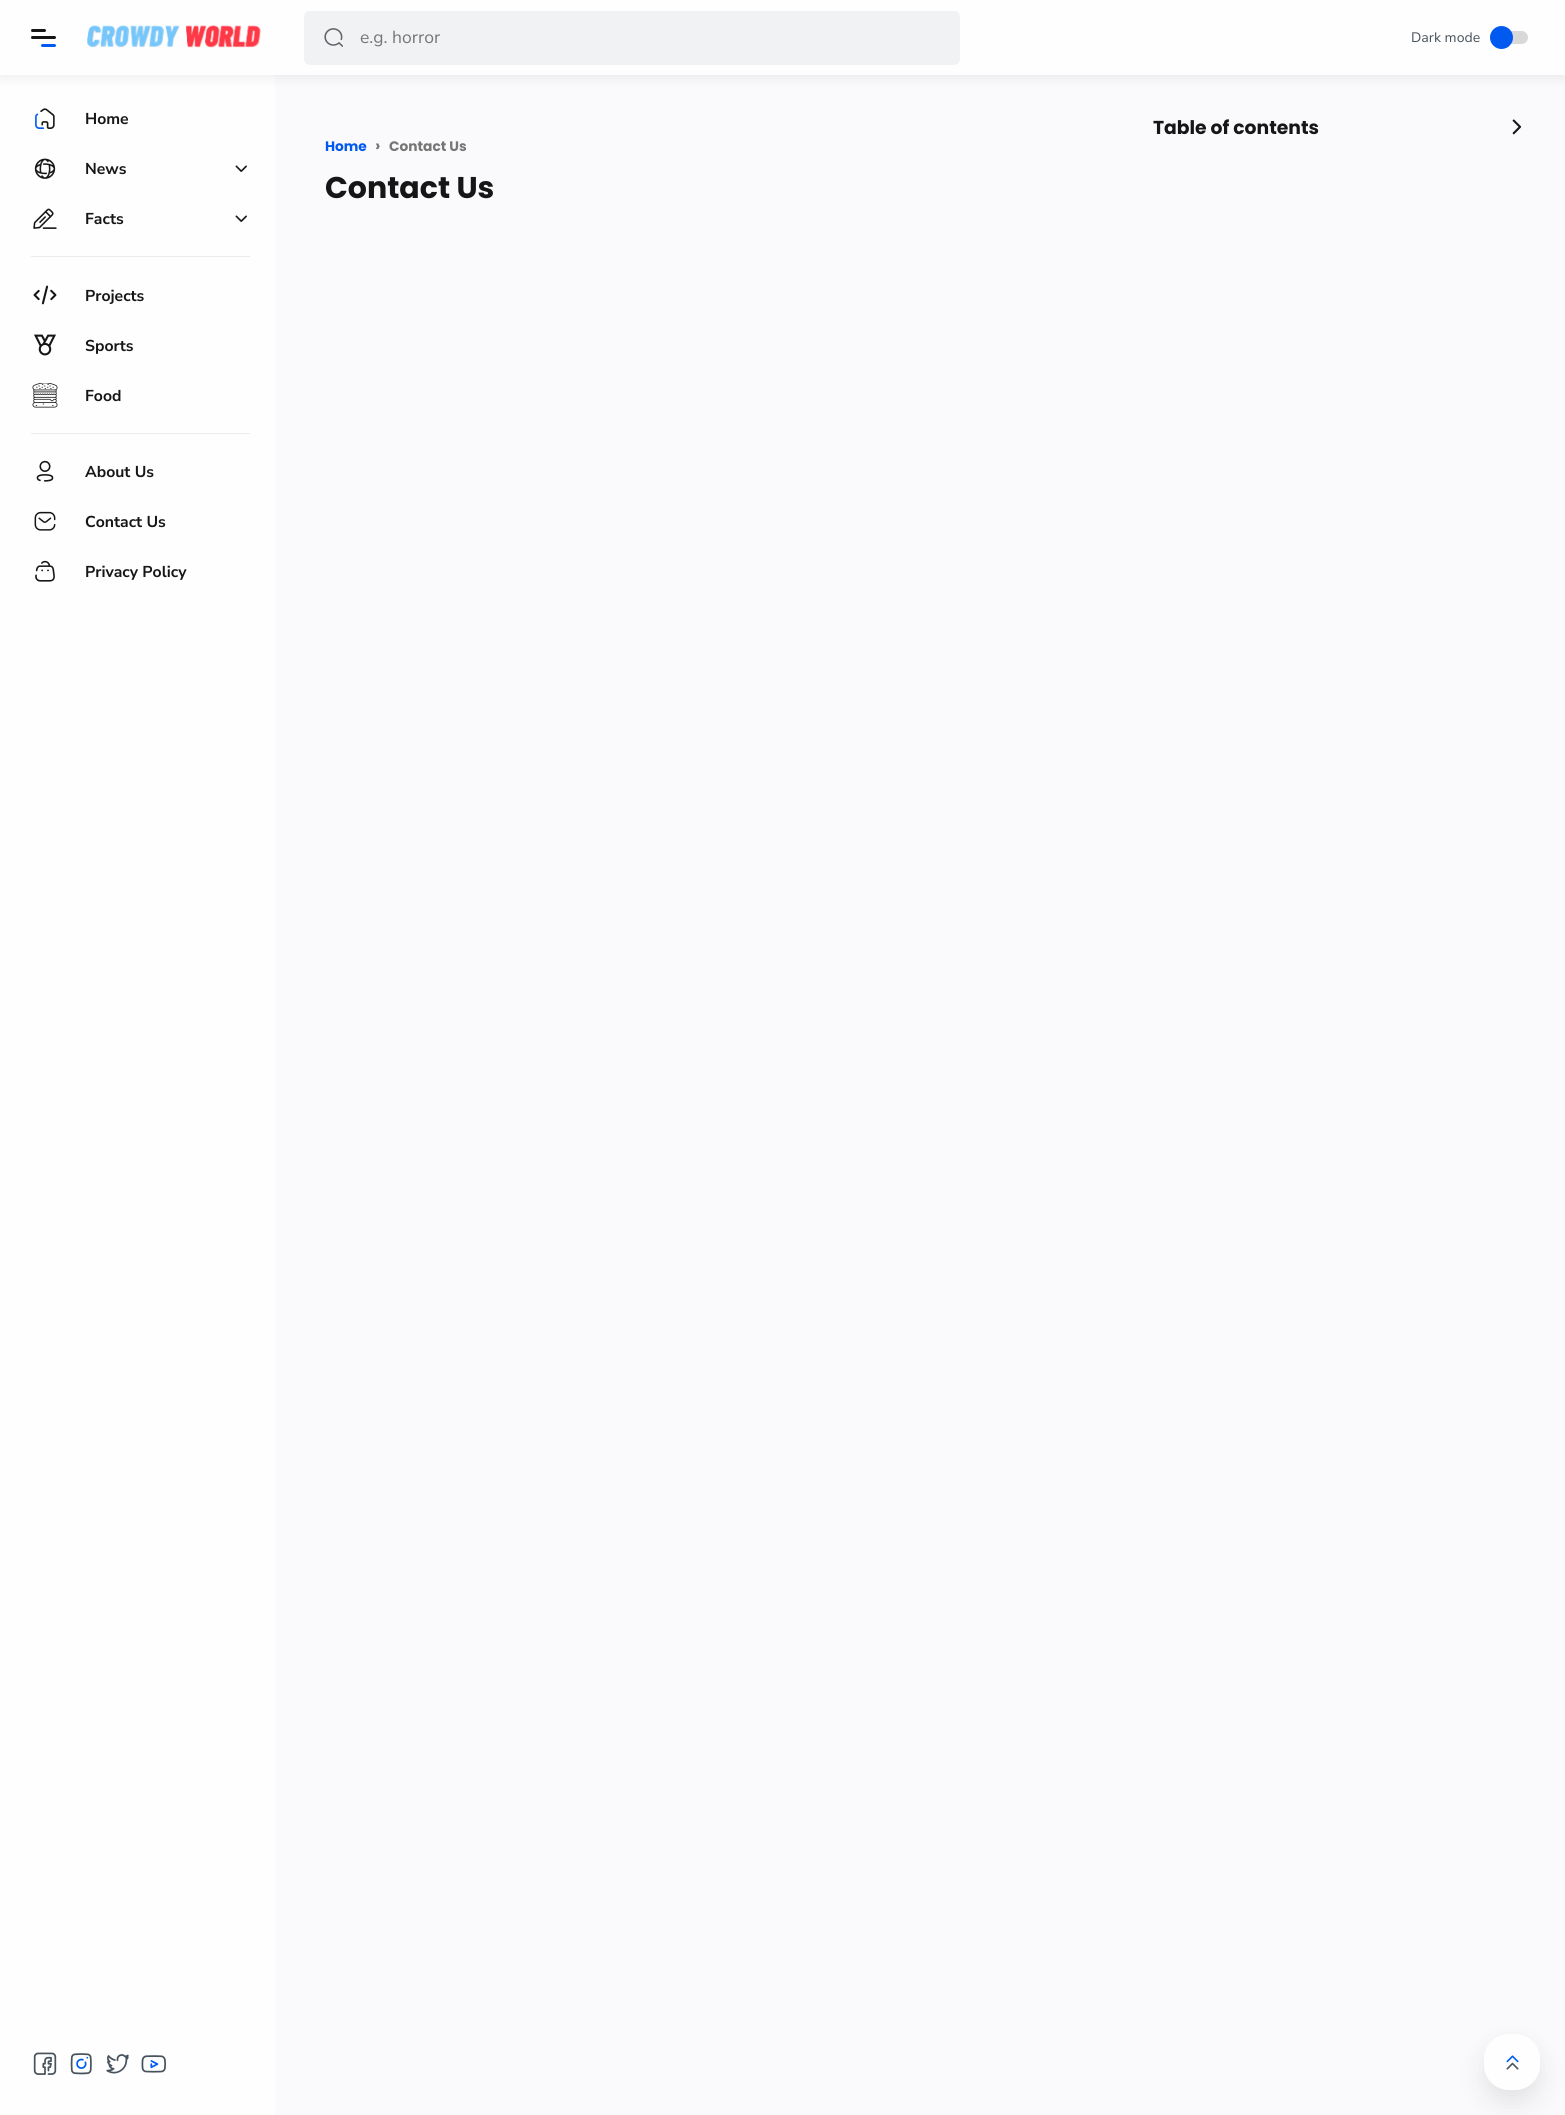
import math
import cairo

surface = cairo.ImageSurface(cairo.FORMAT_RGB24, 1565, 2115)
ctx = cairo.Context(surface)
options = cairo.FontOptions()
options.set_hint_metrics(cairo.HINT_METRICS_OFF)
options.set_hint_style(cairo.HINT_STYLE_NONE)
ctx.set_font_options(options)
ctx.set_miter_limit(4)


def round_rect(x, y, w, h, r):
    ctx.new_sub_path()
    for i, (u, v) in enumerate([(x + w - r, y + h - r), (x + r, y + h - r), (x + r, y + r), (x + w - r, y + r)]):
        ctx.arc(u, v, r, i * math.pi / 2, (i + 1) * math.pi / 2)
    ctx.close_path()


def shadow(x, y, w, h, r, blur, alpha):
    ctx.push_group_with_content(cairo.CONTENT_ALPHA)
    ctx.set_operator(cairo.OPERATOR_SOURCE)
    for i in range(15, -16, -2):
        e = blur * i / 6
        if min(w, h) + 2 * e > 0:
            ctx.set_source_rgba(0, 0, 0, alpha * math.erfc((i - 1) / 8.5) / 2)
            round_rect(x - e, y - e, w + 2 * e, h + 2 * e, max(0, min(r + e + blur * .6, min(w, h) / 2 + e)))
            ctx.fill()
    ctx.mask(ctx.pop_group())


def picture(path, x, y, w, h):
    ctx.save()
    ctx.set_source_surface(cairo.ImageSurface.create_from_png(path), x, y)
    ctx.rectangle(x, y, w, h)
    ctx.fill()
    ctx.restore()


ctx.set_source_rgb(0.98, 0.98, 0.988)
ctx.paint()
ctx.set_source_rgb(0.996, 0.996, 0.996)
ctx.rectangle(0, 75, 275, 2040)
ctx.fill()
picture("img1.png", 35, 108, 20, 21)
ctx.select_font_face("Nunito Sans", cairo.FONT_SLANT_NORMAL, cairo.FONT_WEIGHT_BOLD)
ctx.set_font_size(15.75)
ctx.set_source_rgb(0.086, 0.086, 0.09)
ctx.move_to(85, 124)
ctx.show_text("Home")
picture("img2.png", 34, 158, 22, 21)
ctx.move_to(85, 174)
ctx.show_text("News")
picture("img3.png", 235, 165, 12, 7)
picture("img4.png", 33, 208, 24, 21)
ctx.move_to(85, 224)
ctx.show_text("Facts")
picture("img3.png", 235, 215, 12, 7)
ctx.set_source_rgb(0.922, 0.925, 0.929)
ctx.rectangle(31, 256, 219, 1)
ctx.fill()
picture("img5.png", 33, 285, 24, 20)
ctx.set_source_rgb(0.086, 0.086, 0.09)
ctx.move_to(85, 301)
ctx.show_text("Projects")
picture("img6.png", 34, 334, 22, 22)
ctx.move_to(85, 351)
ctx.show_text("Sports")
picture("img7.png", 32, 383, 26, 25)
ctx.move_to(85, 401)
ctx.show_text("Food")
ctx.set_source_rgb(0.922, 0.925, 0.929)
ctx.rectangle(31, 433, 219, 1)
ctx.fill()
picture("img8.png", 36, 460, 18, 22)
ctx.set_source_rgb(0.086, 0.086, 0.09)
ctx.move_to(85, 477)
ctx.show_text("About Us")
picture("img9.png", 34, 511, 22, 20)
ctx.move_to(85, 527)
ctx.show_text("Contact Us")
picture("img10.png", 35, 560, 20, 22)
ctx.move_to(85, 577)
ctx.show_text("Privacy Policy")
picture("img11.png", 33, 2052, 24, 23)
picture("img12.png", 70, 2053, 22, 22)
picture("img13.png", 106, 2054, 23, 20)
picture("img14.png", 141, 2055, 25, 18)
ctx.set_source_rgb(0.118, 0.118, 0.118)
shadow(1484, 2046, 56, 57, 25, 12.5, 0.1)
ctx.set_source_rgb(0.996, 0.996, 0.996)
round_rect(1484, 2034, 56, 56, 25)
ctx.fill()
picture("img15.png", 1506, 2055, 13, 15)
ctx.set_source_rgb(0, 0, 0)
shadow(0, 3, 1565, 75, 0, 6, 0.07)
ctx.set_source_rgb(0.996, 0.996, 0.996)
ctx.rectangle(0, 0, 1565, 75)
ctx.fill()
ctx.set_source_rgb(0.086, 0.086, 0.09)
round_rect(31, 29, 15, 3, 1.5)
ctx.fill()
round_rect(31, 36, 25, 3, 1.5)
ctx.fill()
ctx.set_source_rgb(0, 0.353, 0.941)
round_rect(41, 44, 15, 3, 1.5)
ctx.fill()
picture("img16.png", 87, 25, 174, 23)
ctx.set_source_rgb(0.941, 0.949, 0.957)
round_rect(304, 11, 656, 54, 6)
ctx.fill()
picture("img17.png", 324, 28, 20, 19)
ctx.select_font_face("Nunito Sans")
ctx.set_font_size(17.5)
ctx.set_source_rgb(0.463, 0.463, 0.463)
ctx.move_to(360, 43)
ctx.show_text("e.g. horror")
ctx.select_font_face("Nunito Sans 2")
ctx.set_font_size(13.75)
ctx.set_source_rgb(0.282, 0.322, 0.361)
ctx.move_to(1411, 42)
ctx.show_text("Dark mode")
ctx.set_source_rgb(0.847, 0.847, 0.847)
round_rect(1490, 31, 38, 13, 6.5)
ctx.fill()
ctx.set_source_rgb(0, 0.353, 0.941)
ctx.arc(1501.5, 37.5, 11.5, 0, 2 * math.pi)
ctx.fill()
ctx.select_font_face("Poppins", cairo.FONT_SLANT_NORMAL, cairo.FONT_WEIGHT_BOLD)
ctx.set_font_size(18.75)
ctx.set_source_rgb(0.086, 0.086, 0.09)
ctx.move_to(1153, 134)
ctx.show_text("Table of contents")
picture("img18.png", 1512, 119, 10, 16)
ctx.set_font_size(13.75)
ctx.set_source_rgb(0, 0.353, 0.941)
ctx.move_to(325, 151)
ctx.show_text("Home")
ctx.set_font_size(16)
ctx.set_source_rgb(0.463, 0.463, 0.463)
ctx.move_to(375, 151)
ctx.show_text("›")
ctx.set_font_size(13.75)
ctx.move_to(389, 151)
ctx.show_text("Contact Us")
ctx.set_font_size(30)
ctx.set_source_rgb(0.086, 0.086, 0.09)
ctx.move_to(325, 198)
ctx.show_text("Contact Us")
surface.write_to_png("page.png")
